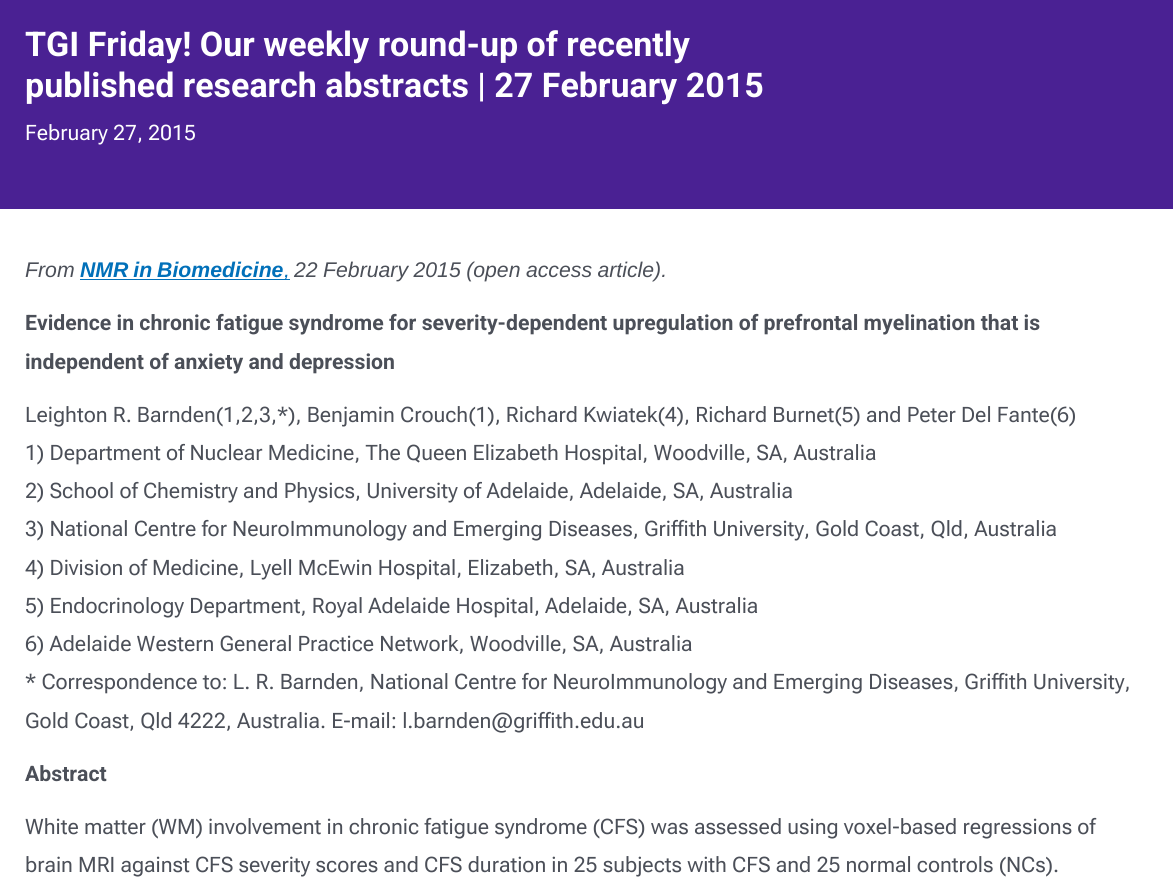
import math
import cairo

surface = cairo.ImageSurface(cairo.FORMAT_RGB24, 1173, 882)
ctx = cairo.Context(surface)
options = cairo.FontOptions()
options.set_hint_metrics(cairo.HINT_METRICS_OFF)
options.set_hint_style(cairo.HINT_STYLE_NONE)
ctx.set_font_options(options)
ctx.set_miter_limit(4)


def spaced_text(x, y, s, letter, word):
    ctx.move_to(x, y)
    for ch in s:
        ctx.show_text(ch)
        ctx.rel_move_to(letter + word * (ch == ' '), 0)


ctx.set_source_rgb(1, 1, 1)
ctx.paint()
ctx.set_source_rgb(0.29, 0.129, 0.576)
ctx.rectangle(0, 0, 1173, 209)
ctx.fill()
ctx.select_font_face("Roboto", cairo.FONT_SLANT_NORMAL, cairo.FONT_WEIGHT_BOLD)
ctx.set_font_size(34)
ctx.set_source_rgb(1, 1, 1)
ctx.move_to(25, 56)
ctx.show_text("TGI Friday! Our weekly round-up of recently")
ctx.move_to(25, 97)
ctx.show_text("published research abstracts | 27 February 2015")
ctx.select_font_face("Roboto Flex")
ctx.set_font_size(21.25)
ctx.move_to(25, 140)
ctx.show_text("February 27, 2015")
ctx.select_font_face("Liberation Sans", cairo.FONT_SLANT_ITALIC)
ctx.set_source_rgb(0.294, 0.31, 0.345)
ctx.move_to(25, 277)
ctx.show_text("From")
ctx.select_font_face("Liberation Sans", cairo.FONT_SLANT_ITALIC, cairo.FONT_WEIGHT_BOLD)
ctx.set_source_rgb(0.004, 0.439, 0.725)
spaced_text(80, 277, "NMR in Biomedicine", 0, -1)
ctx.rectangle(80, 279, 210, 1)
ctx.fill()
ctx.select_font_face("Liberation Sans", cairo.FONT_SLANT_ITALIC)
ctx.move_to(284, 277)
ctx.show_text(",")
ctx.set_source_rgb(0.294, 0.31, 0.345)
spaced_text(294, 277, "22 February 2015 (open access article).", 0, -0.5)
ctx.select_font_face("Roboto", cairo.FONT_SLANT_NORMAL, cairo.FONT_WEIGHT_BOLD)
ctx.move_to(25, 330)
ctx.show_text("Evidence in chronic fatigue syndrome for severity-dependent upregulation of prefrontal myelination that is")
ctx.move_to(25, 369)
ctx.show_text("independent of anxiety and depression")
ctx.select_font_face("Roboto Flex")
ctx.move_to(25, 422)
ctx.show_text("Leighton R. Barnden(1,2,3,*), Benjamin Crouch(1), Richard Kwiatek(4), Richard Burnet(5) and Peter Del Fante(6)")
ctx.move_to(25, 460)
ctx.show_text("1) Department of Nuclear Medicine, The Queen Elizabeth Hospital, Woodville, SA, Australia")
ctx.move_to(25, 498)
ctx.show_text("2) School of Chemistry and Physics, University of Adelaide, Adelaide, SA, Australia")
ctx.move_to(25, 536)
ctx.show_text("3) National Centre for NeuroImmunology and Emerging Diseases, Griffith University, Gold Coast, Qld, Australia")
ctx.move_to(25, 575)
ctx.show_text("4) Division of Medicine, Lyell McEwin Hospital, Elizabeth, SA, Australia")
ctx.move_to(25, 613)
ctx.show_text("5) Endocrinology Department, Royal Adelaide Hospital, Adelaide, SA, Australia")
ctx.move_to(25, 651)
ctx.show_text("6) Adelaide Western General Practice Network, Woodville, SA, Australia")
ctx.move_to(25, 689)
ctx.show_text("* Correspondence to: L. R. Barnden, National Centre for NeuroImmunology and Emerging Diseases, Griffith University,")
ctx.move_to(25, 728)
ctx.show_text("Gold Coast, Qld 4222, Australia. E-mail: l.barnden@griffith.edu.au")
ctx.select_font_face("Roboto", cairo.FONT_SLANT_NORMAL, cairo.FONT_WEIGHT_BOLD)
ctx.move_to(25, 781)
ctx.show_text("Abstract")
ctx.select_font_face("Roboto Flex")
ctx.move_to(25, 834)
ctx.show_text("White matter (WM) involvement in chronic fatigue syndrome (CFS) was assessed using voxel-based regressions of")
ctx.move_to(25, 872)
ctx.show_text("brain MRI against CFS severity scores and CFS duration in 25 subjects with CFS and 25 normal controls (NCs).")
surface.write_to_png("page.png")
